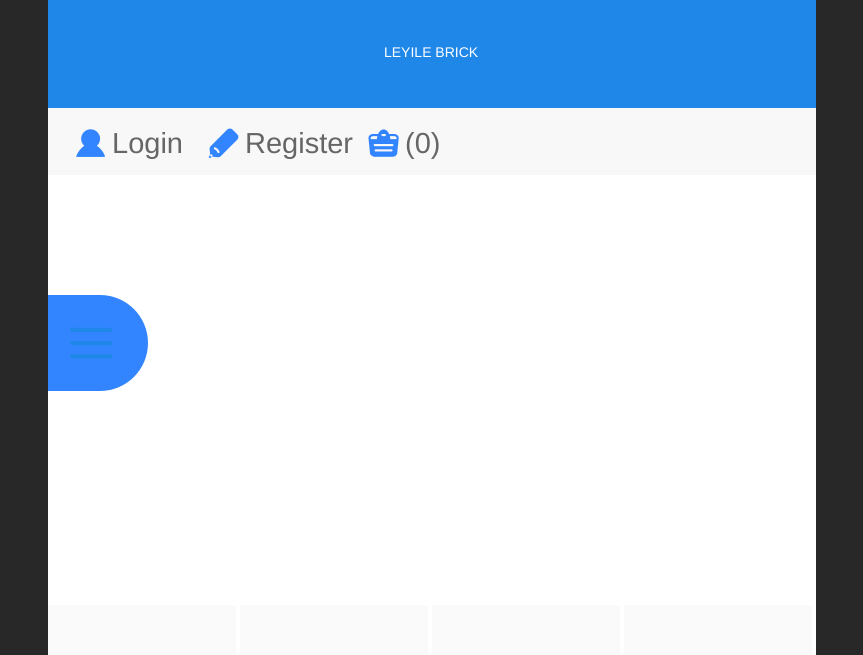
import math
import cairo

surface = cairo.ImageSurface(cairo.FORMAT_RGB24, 863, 655)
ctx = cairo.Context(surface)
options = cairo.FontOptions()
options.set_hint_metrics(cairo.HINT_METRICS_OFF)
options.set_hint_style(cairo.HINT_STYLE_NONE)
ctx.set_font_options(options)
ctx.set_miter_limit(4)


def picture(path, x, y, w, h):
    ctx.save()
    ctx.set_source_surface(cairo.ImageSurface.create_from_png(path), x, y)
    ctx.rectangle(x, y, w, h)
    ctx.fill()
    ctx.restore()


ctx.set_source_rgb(1, 1, 1)
ctx.paint()
ctx.set_source_rgb(0.157, 0.157, 0.157)
ctx.rectangle(0, 0, 48, 655)
ctx.fill()
ctx.set_source_rgb(0.122, 0.529, 0.91)
ctx.rectangle(48, 0, 768, 108)
ctx.fill()
ctx.select_font_face("Liberation Sans")
ctx.set_font_size(14)
ctx.set_source_rgb(1, 1, 1)
ctx.move_to(384, 57)
ctx.show_text("LEYILE BRICK")
ctx.set_source_rgb(0.196, 0.522, 1)
ctx.new_path()
ctx.move_to(48, 295)
ctx.line_to(100, 295)
ctx.curve_to(126.5, 295, 148, 316.5, 148, 343)
ctx.curve_to(148, 369.5, 126.5, 391, 100, 391)
ctx.line_to(48, 391)
ctx.close_path()
ctx.fill()
picture("img1.png", 70, 327, 43, 32)
ctx.set_source_rgb(0.969, 0.969, 0.969)
ctx.rectangle(48, 108, 768, 67)
ctx.fill()
picture("img2.png", 76, 129, 29, 28)
ctx.set_font_size(29)
ctx.set_source_rgb(0.4, 0.4, 0.4)
ctx.move_to(112, 153)
ctx.show_text("Login")
picture("img3.png", 208, 128, 31, 30)
ctx.move_to(245, 153)
ctx.show_text("Register")
picture("img4.png", 368, 129, 31, 28)
ctx.move_to(405, 153)
ctx.show_text("(0)")
ctx.set_source_rgb(0.98, 0.98, 0.98)
ctx.rectangle(48, 605, 188, 50)
ctx.fill()
ctx.rectangle(240, 605, 188, 50)
ctx.fill()
ctx.rectangle(432, 605, 188, 50)
ctx.fill()
ctx.rectangle(624, 605, 188, 50)
ctx.fill()
ctx.set_source_rgb(0.157, 0.157, 0.157)
ctx.rectangle(816, 0, 47, 655)
ctx.fill()
surface.write_to_png("page.png")
